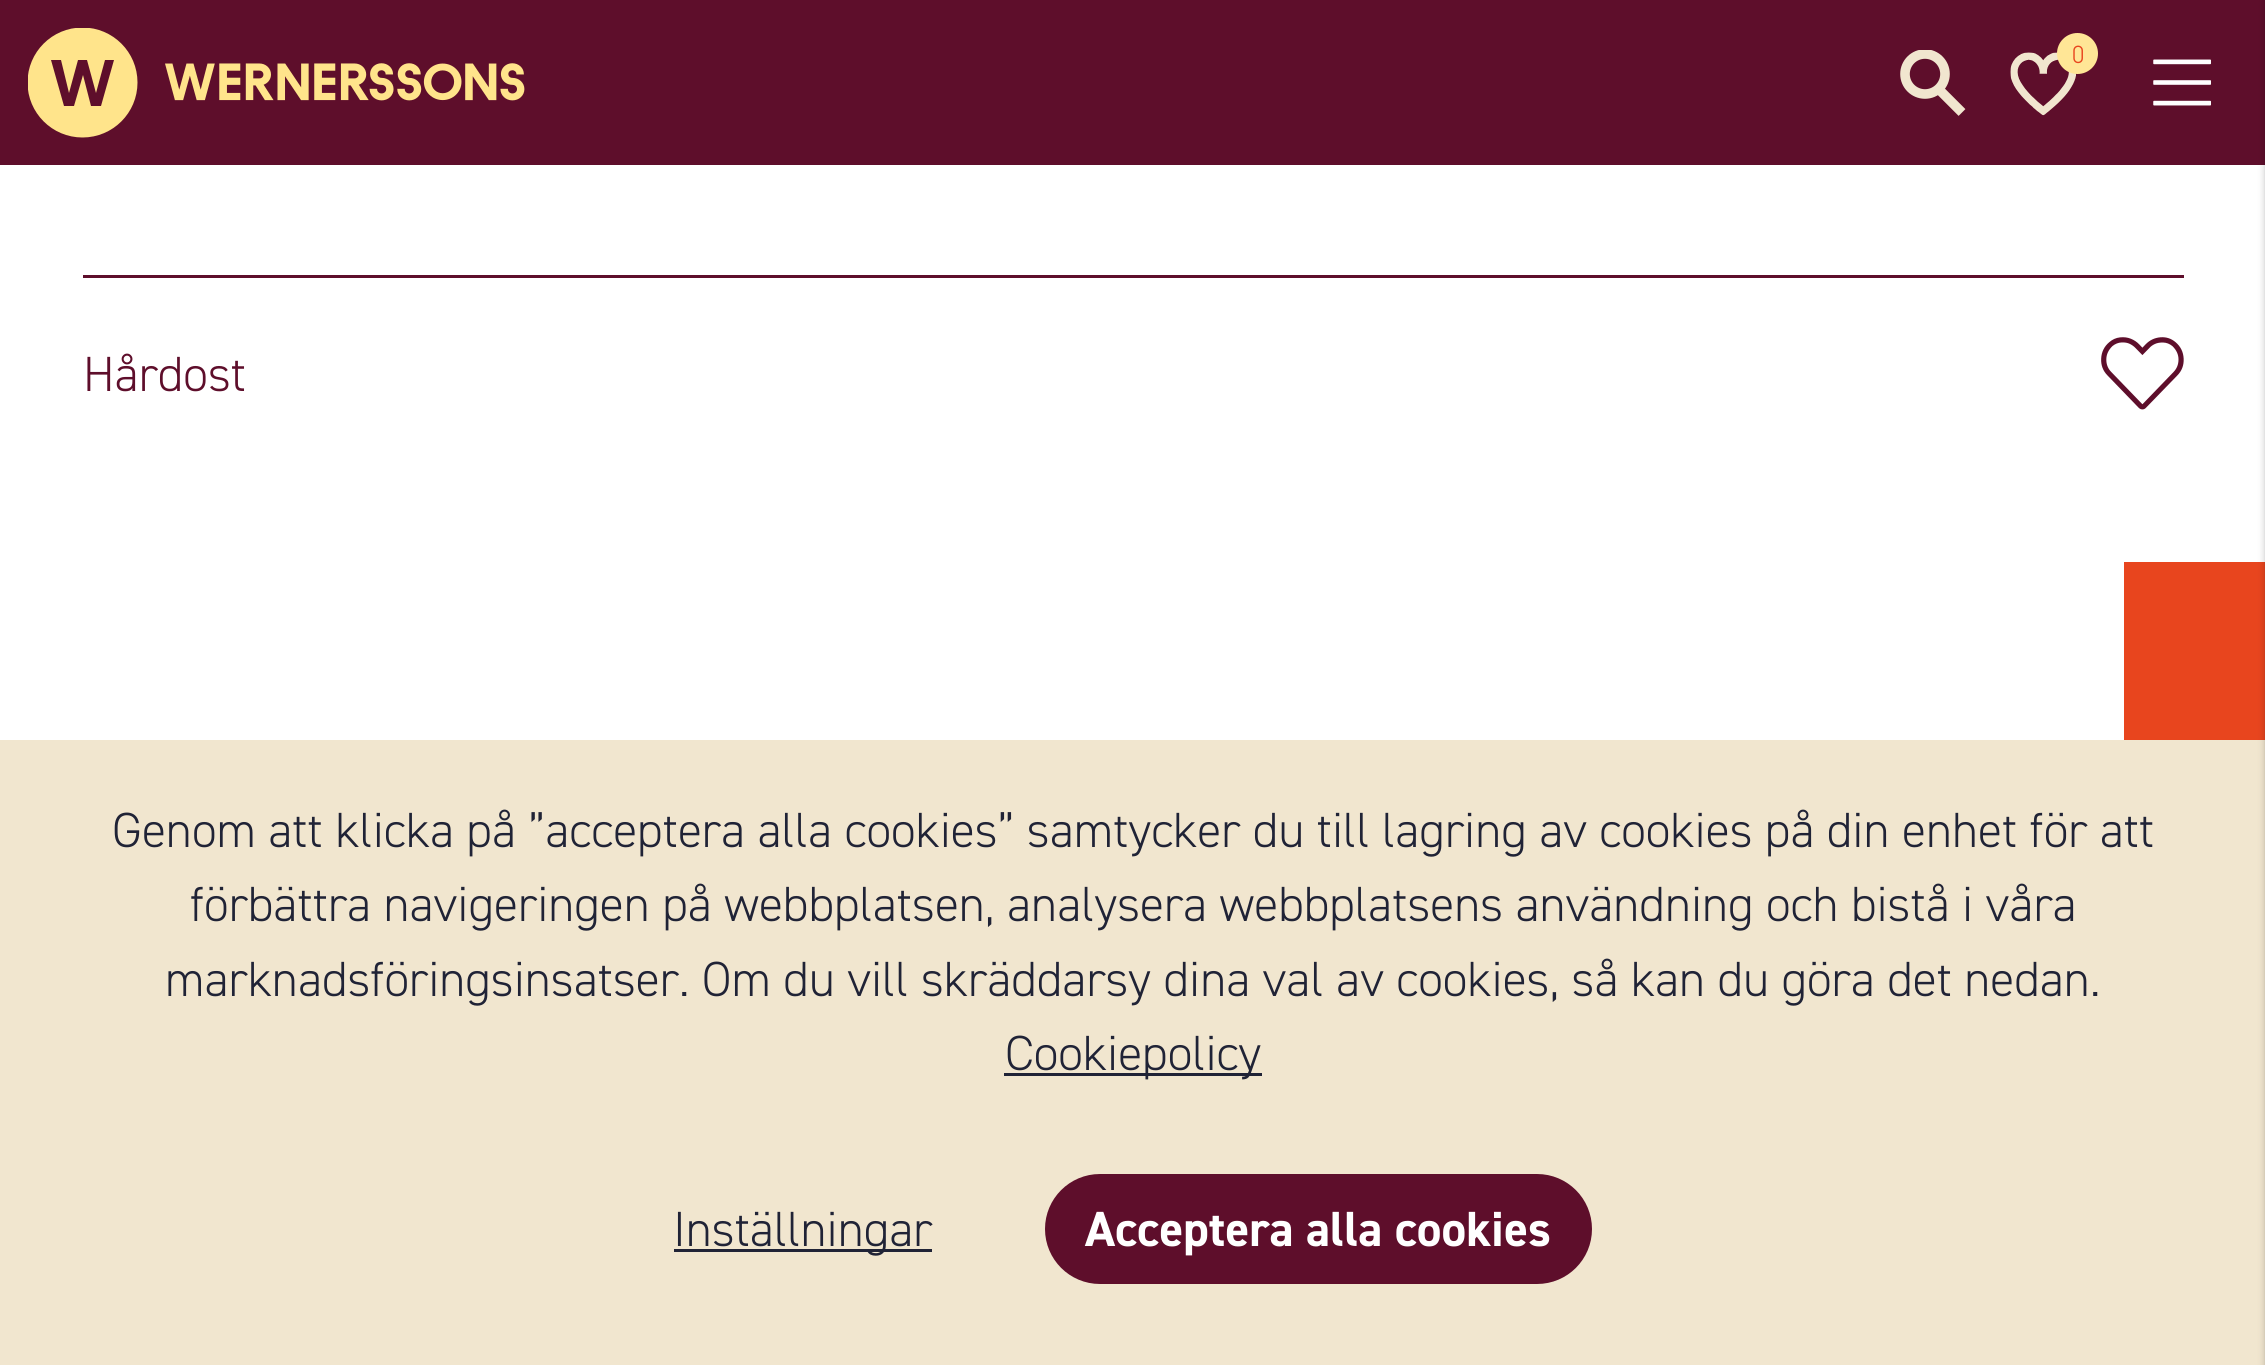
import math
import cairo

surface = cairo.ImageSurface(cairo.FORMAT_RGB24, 2265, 1365)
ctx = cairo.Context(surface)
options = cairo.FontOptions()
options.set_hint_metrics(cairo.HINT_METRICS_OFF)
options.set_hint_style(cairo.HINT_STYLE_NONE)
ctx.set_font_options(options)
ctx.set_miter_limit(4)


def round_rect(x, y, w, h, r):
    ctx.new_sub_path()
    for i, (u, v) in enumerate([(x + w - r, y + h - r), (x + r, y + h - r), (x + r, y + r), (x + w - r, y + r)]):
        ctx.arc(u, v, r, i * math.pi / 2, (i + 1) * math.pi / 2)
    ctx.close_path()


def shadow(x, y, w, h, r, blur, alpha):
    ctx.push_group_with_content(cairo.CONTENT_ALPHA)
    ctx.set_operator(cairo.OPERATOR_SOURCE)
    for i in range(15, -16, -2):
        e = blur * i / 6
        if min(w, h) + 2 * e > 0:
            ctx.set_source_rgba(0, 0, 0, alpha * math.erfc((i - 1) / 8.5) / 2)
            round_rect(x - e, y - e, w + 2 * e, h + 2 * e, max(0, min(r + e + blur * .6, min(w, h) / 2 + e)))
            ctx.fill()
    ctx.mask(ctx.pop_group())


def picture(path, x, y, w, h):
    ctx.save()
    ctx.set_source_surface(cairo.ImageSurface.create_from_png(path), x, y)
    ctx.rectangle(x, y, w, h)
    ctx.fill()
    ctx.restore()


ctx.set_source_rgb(1, 1, 1)
ctx.paint()
ctx.set_source_rgb(0.369, 0.055, 0.169)
ctx.rectangle(0, 0, 2265, 165)
ctx.fill()
ctx.save()
ctx.rectangle(28, 28, 110, 110)
ctx.clip()
ctx.set_source_rgb(1, 0.894, 0.545)
ctx.arc(82.5, 82.5, 55, 0, 2 * math.pi)
ctx.fill()
ctx.restore()
ctx.new_path()
ctx.move_to(114, 60)
ctx.line_to(101, 106)
ctx.line_to(91, 106)
ctx.line_to(83, 75)
ctx.line_to(74, 106)
ctx.line_to(64, 106)
ctx.line_to(51, 60)
ctx.line_to(61, 60)
ctx.line_to(69, 93)
ctx.line_to(78, 60)
ctx.line_to(87, 60)
ctx.line_to(96, 93)
ctx.line_to(105, 60)
ctx.close_path()
ctx.fill()
picture("img1.png", 165, 63, 360, 38)
ctx.new_path()
ctx.move_to(1938.5, 89)
ctx.line_to(1962, 112.5)
ctx.set_source_rgb(0.945, 0.902, 0.812)
ctx.set_line_width(9.6)
ctx.stroke()
ctx.save()
ctx.rectangle(1900, 50, 66, 66)
ctx.clip()
ctx.arc(1925, 74, 20, 0, 2 * math.pi)
ctx.stroke()
ctx.restore()
picture("img2.png", 2010, 52, 66, 64)
ctx.set_source_rgb(1, 0.902, 0.588)
ctx.arc(2077.5, 53.5, 20.5, 0, 2 * math.pi)
ctx.fill()
ctx.select_font_face("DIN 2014 Light")
ctx.set_font_size(25)
ctx.set_source_rgb(0.91, 0.271, 0.118)
ctx.move_to(2072, 63)
ctx.show_text("0")
picture("img3.png", 2153, 59, 58, 47)
ctx.set_source_rgb(0.369, 0.055, 0.169)
ctx.rectangle(83, 275, 2101, 3)
ctx.fill()
ctx.set_font_size(49.5)
ctx.move_to(83, 391)
ctx.show_text("Hårdost")
picture("img4.png", 2101, 337, 83, 73)
ctx.set_source_rgb(0.91, 0.271, 0.118)
ctx.rectangle(2124, 562, 141, 178)
ctx.fill()
ctx.set_source_rgb(0.945, 0.902, 0.812)
ctx.rectangle(0, 740, 2265, 625)
ctx.fill()
ctx.set_source_rgb(0.125, 0.137, 0.212)
ctx.move_to(112, 847)
ctx.show_text("Genom att klicka på ”acceptera alla cookies” samtycker du till lagring av cookies på din enhet för att")
ctx.move_to(190, 921)
ctx.show_text("förbättra navigeringen på webbplatsen, analysera webbplatsens användning och bistå i våra")
ctx.move_to(165, 996)
ctx.show_text("marknadsföringsinsatser. Om du vill skräddarsy dina val av cookies, så kan du göra det nedan.")
ctx.rectangle(1004, 1073, 258, 3)
ctx.fill()
ctx.move_to(1005, 1070)
ctx.show_text("Cookiepolicy")
ctx.rectangle(674, 1249, 258, 3)
ctx.fill()
ctx.move_to(673, 1246)
ctx.show_text("Inställningar")
ctx.set_source_rgb(0.369, 0.055, 0.169)
round_rect(1045, 1174, 547, 110, 55)
ctx.fill()
ctx.select_font_face("DIN 2014", cairo.FONT_SLANT_NORMAL, cairo.FONT_WEIGHT_BOLD)
ctx.set_source_rgb(1, 1, 1)
ctx.move_to(1085, 1246)
ctx.show_text("Acceptera alla cookies")
ctx.set_source_rgb(0, 0, 0)
shadow(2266, 0, 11, 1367, 0, 4, 0.3)
surface.write_to_png("page.png")
